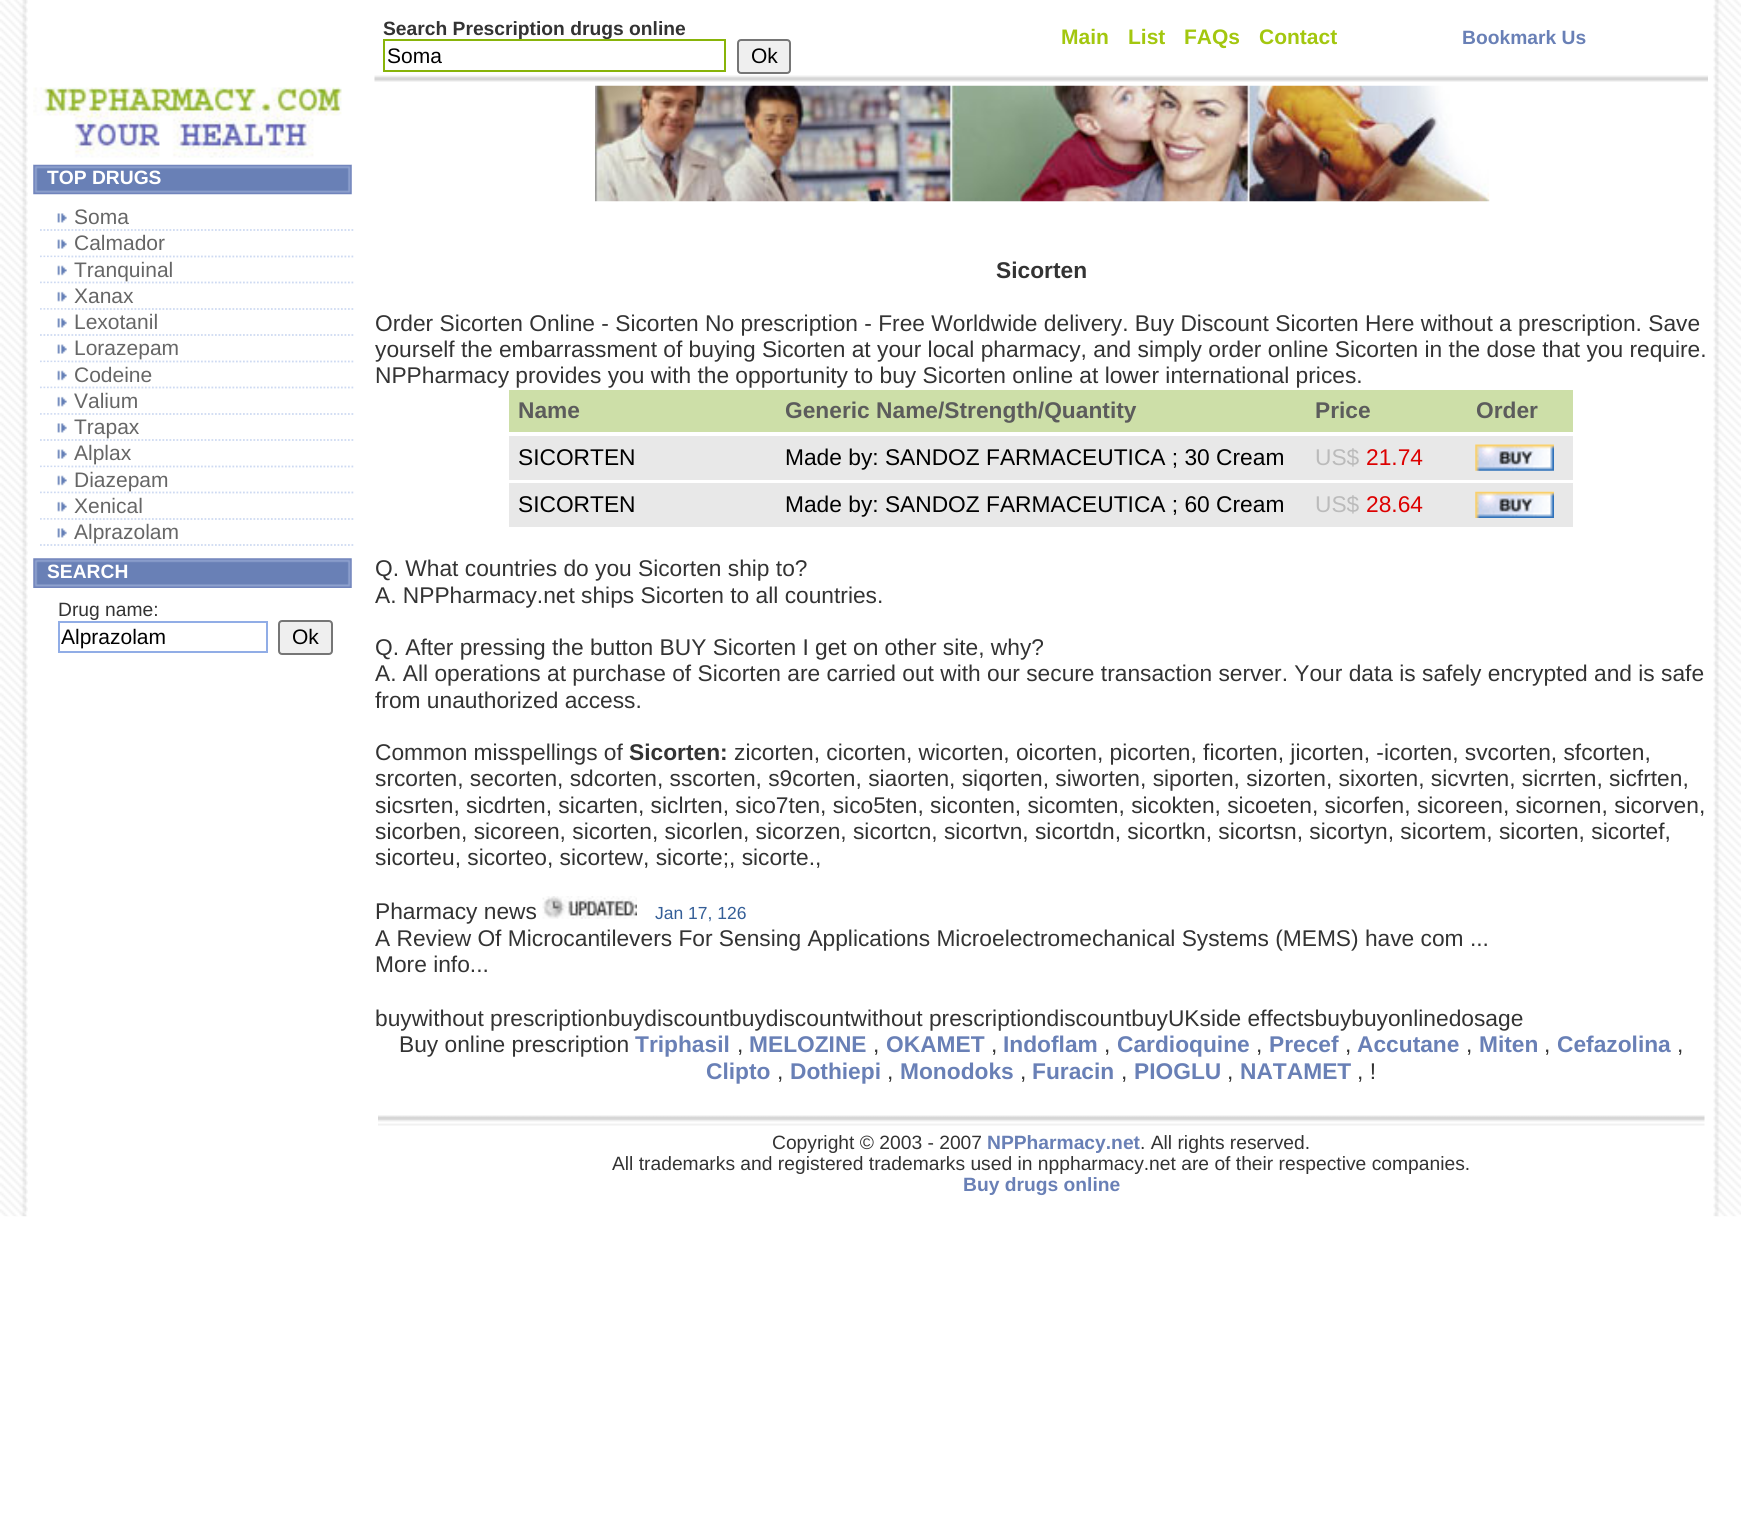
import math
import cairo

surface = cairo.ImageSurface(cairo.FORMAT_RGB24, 1741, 1539)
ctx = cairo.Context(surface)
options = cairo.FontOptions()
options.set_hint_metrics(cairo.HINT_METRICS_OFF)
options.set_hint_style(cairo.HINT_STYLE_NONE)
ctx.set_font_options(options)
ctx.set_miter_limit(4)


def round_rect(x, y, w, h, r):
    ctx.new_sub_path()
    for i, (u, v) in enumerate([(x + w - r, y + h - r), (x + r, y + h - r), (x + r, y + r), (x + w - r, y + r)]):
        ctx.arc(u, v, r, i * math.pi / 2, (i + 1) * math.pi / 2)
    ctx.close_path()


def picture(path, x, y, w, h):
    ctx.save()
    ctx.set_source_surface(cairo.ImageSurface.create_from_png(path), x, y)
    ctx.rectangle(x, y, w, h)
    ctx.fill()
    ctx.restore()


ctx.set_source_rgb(1, 1, 1)
ctx.paint()
picture("img1.png", 0, 0, 28, 1217)
ctx.select_font_face("Liberation Sans", cairo.FONT_SLANT_NORMAL, cairo.FONT_WEIGHT_BOLD)
ctx.set_font_size(19.25)
ctx.set_source_rgb(0.2, 0.2, 0.2)
ctx.move_to(383, 35)
ctx.show_text("Search Prescription drugs online")
ctx.rectangle(384, 40, 341, 31)
ctx.set_source_rgb(0.533, 0.706, 0.039)
ctx.stroke()
ctx.select_font_face("Liberation Sans")
ctx.set_font_size(21)
ctx.set_source_rgb(0, 0, 0)
ctx.move_to(387, 63)
ctx.show_text("Soma")
ctx.set_source_rgb(0.937, 0.937, 0.937)
round_rect(738, 40, 52, 33, 3)
ctx.fill_preserve()
ctx.set_source_rgb(0.463, 0.463, 0.463)
ctx.stroke()
ctx.set_source_rgb(0, 0, 0)
ctx.move_to(751, 63)
ctx.show_text("Ok")
ctx.select_font_face("Liberation Sans", cairo.FONT_SLANT_NORMAL, cairo.FONT_WEIGHT_BOLD)
ctx.set_source_rgb(0.639, 0.78, 0.059)
ctx.move_to(1061, 44)
ctx.show_text("Main")
ctx.move_to(1128, 44)
ctx.show_text("List")
ctx.move_to(1184, 44)
ctx.show_text("FAQs")
ctx.move_to(1259, 44)
ctx.show_text("Contact")
ctx.set_font_size(19.25)
ctx.set_source_rgb(0.412, 0.502, 0.714)
ctx.move_to(1462, 44)
ctx.show_text("Bookmark Us")
picture("img2.png", 1713, 0, 28, 1217)
picture("img4.png", 33, 164, 319, 31)
picture("img3.png", 33, 87, 319, 78)
ctx.set_source_rgb(1, 1, 1)
ctx.move_to(47, 184)
ctx.show_text("TOP DRUGS")
picture("img5.png", 57, 213, 10, 10)
ctx.new_path()
ctx.move_to(40, 230)
ctx.line_to(353.5, 230)
ctx.set_source_rgb(0.808, 0.855, 0.949)
ctx.set_line_width(1.8)
ctx.set_dash([1.75, 1.75])
ctx.stroke()
ctx.select_font_face("Liberation Sans")
ctx.set_font_size(21)
ctx.set_source_rgb(0.4, 0.4, 0.4)
ctx.move_to(74, 224)
ctx.show_text("Soma")
picture("img6.png", 57, 239, 10, 10)
ctx.new_path()
ctx.move_to(40, 256.5)
ctx.line_to(353.5, 256.5)
ctx.set_source_rgb(0.808, 0.855, 0.949)
ctx.stroke()
ctx.set_source_rgb(0.4, 0.4, 0.4)
ctx.move_to(74, 250)
ctx.show_text("Calmador")
picture("img7.png", 40, 257, 27, 19)
ctx.new_path()
ctx.move_to(40, 282.5)
ctx.line_to(353.5, 282.5)
ctx.set_source_rgb(0.808, 0.855, 0.949)
ctx.stroke()
ctx.set_source_rgb(0.4, 0.4, 0.4)
ctx.move_to(74, 277)
ctx.show_text("Tranquinal")
picture("img8.png", 40, 283, 27, 19)
ctx.new_path()
ctx.move_to(40, 309)
ctx.line_to(353.5, 309)
ctx.set_source_rgb(0.808, 0.855, 0.949)
ctx.stroke()
ctx.set_source_rgb(0.4, 0.4, 0.4)
ctx.move_to(74, 303)
ctx.show_text("Xanax")
picture("img9.png", 40, 309, 27, 19)
ctx.new_path()
ctx.move_to(40, 335)
ctx.line_to(353.5, 335)
ctx.set_source_rgb(0.808, 0.855, 0.949)
ctx.stroke()
ctx.set_source_rgb(0.4, 0.4, 0.4)
ctx.move_to(74, 329)
ctx.show_text("Lexotanil")
picture("img6.png", 57, 344, 10, 10)
ctx.new_path()
ctx.move_to(40, 361.5)
ctx.line_to(353.5, 361.5)
ctx.set_source_rgb(0.808, 0.855, 0.949)
ctx.stroke()
ctx.set_source_rgb(0.4, 0.4, 0.4)
ctx.move_to(74, 355)
ctx.show_text("Lorazepam")
picture("img7.png", 40, 362, 27, 19)
ctx.new_path()
ctx.move_to(40, 387.5)
ctx.line_to(353.5, 387.5)
ctx.set_source_rgb(0.808, 0.855, 0.949)
ctx.stroke()
ctx.set_source_rgb(0.4, 0.4, 0.4)
ctx.move_to(74, 382)
ctx.show_text("Codeine")
picture("img8.png", 40, 388, 27, 19)
ctx.new_path()
ctx.move_to(40, 414)
ctx.line_to(353.5, 414)
ctx.set_source_rgb(0.808, 0.855, 0.949)
ctx.stroke()
ctx.set_source_rgb(0.4, 0.4, 0.4)
ctx.move_to(74, 408)
ctx.show_text("Valium")
picture("img9.png", 40, 414, 27, 19)
ctx.new_path()
ctx.move_to(40, 440)
ctx.line_to(353.5, 440)
ctx.set_source_rgb(0.808, 0.855, 0.949)
ctx.stroke()
ctx.set_source_rgb(0.4, 0.4, 0.4)
ctx.move_to(74, 434)
ctx.show_text("Trapax")
picture("img6.png", 57, 449, 10, 10)
ctx.new_path()
ctx.move_to(40, 466.5)
ctx.line_to(353.5, 466.5)
ctx.set_source_rgb(0.808, 0.855, 0.949)
ctx.stroke()
ctx.set_source_rgb(0.4, 0.4, 0.4)
ctx.move_to(74, 460)
ctx.show_text("Alplax")
picture("img7.png", 40, 467, 27, 19)
ctx.new_path()
ctx.move_to(40, 492.5)
ctx.line_to(353.5, 492.5)
ctx.set_source_rgb(0.808, 0.855, 0.949)
ctx.stroke()
ctx.set_source_rgb(0.4, 0.4, 0.4)
ctx.move_to(74, 487)
ctx.show_text("Diazepam")
picture("img8.png", 40, 493, 27, 19)
ctx.new_path()
ctx.move_to(40, 519)
ctx.line_to(353.5, 519)
ctx.set_source_rgb(0.808, 0.855, 0.949)
ctx.stroke()
ctx.set_source_rgb(0.4, 0.4, 0.4)
ctx.move_to(74, 513)
ctx.show_text("Xenical")
picture("img9.png", 40, 519, 27, 19)
ctx.new_path()
ctx.move_to(40, 545)
ctx.line_to(353.5, 545)
ctx.set_source_rgb(0.808, 0.855, 0.949)
ctx.stroke()
ctx.set_source_rgb(0.4, 0.4, 0.4)
ctx.move_to(74, 539)
ctx.show_text("Alprazolam")
picture("img10.png", 33, 558, 319, 30)
ctx.select_font_face("Liberation Sans", cairo.FONT_SLANT_NORMAL, cairo.FONT_WEIGHT_BOLD)
ctx.set_font_size(19.25)
ctx.set_source_rgb(1, 1, 1)
ctx.move_to(47, 578)
ctx.show_text("SEARCH")
ctx.select_font_face("Liberation Sans")
ctx.set_source_rgb(0.2, 0.2, 0.2)
ctx.move_to(58, 616)
ctx.show_text("Drug name:")
ctx.rectangle(59, 622, 208, 30)
ctx.set_source_rgb(0.569, 0.678, 0.902)
ctx.set_line_width(2)
ctx.set_dash([])
ctx.stroke()
ctx.set_font_size(21)
ctx.set_source_rgb(0, 0, 0)
ctx.move_to(61, 644)
ctx.show_text("Alprazolam")
ctx.set_source_rgb(0.937, 0.937, 0.937)
round_rect(279, 621, 53, 33, 3)
ctx.fill_preserve()
ctx.set_source_rgb(0.463, 0.463, 0.463)
ctx.stroke()
ctx.set_source_rgb(0, 0, 0)
ctx.move_to(292, 644)
ctx.show_text("Ok")
picture("img11.png", 374, 75, 1334, 7)
picture("img12.png", 595, 85, 895, 117)
ctx.select_font_face("Liberation Sans", cairo.FONT_SLANT_NORMAL, cairo.FONT_WEIGHT_BOLD)
ctx.set_font_size(22.75)
ctx.set_source_rgb(0.2, 0.2, 0.2)
ctx.move_to(996, 278)
ctx.show_text("Sicorten")
ctx.select_font_face("Liberation Sans")
ctx.move_to(375, 331)
ctx.show_text("Order Sicorten Online - Sicorten No prescription - Free Worldwide delivery. Buy Discount Sicorten Here without a prescription. Save")
ctx.move_to(375, 357)
ctx.show_text("yourself the embarrassment of buying Sicorten at your local pharmacy, and simply order online Sicorten in the dose that you require.")
ctx.move_to(375, 383)
ctx.show_text("NPPharmacy provides you with the opportunity to buy Sicorten online at lower international prices.")
ctx.set_source_rgb(0.804, 0.875, 0.659)
ctx.rectangle(509, 390, 1064, 42)
ctx.fill()
ctx.select_font_face("Liberation Sans", cairo.FONT_SLANT_NORMAL, cairo.FONT_WEIGHT_BOLD)
ctx.set_source_rgb(0.361, 0.361, 0.361)
ctx.move_to(518, 418)
ctx.show_text("Name")
ctx.move_to(785, 418)
ctx.show_text("Generic Name/Strength/Quantity")
ctx.move_to(1315, 418)
ctx.show_text("Price")
ctx.move_to(1476, 418)
ctx.show_text("Order")
ctx.set_source_rgb(0.91, 0.91, 0.91)
ctx.rectangle(509, 436, 1064, 44)
ctx.fill()
ctx.select_font_face("Liberation Sans")
ctx.set_source_rgb(0, 0, 0)
ctx.move_to(518, 465)
ctx.show_text("SICORTEN")
ctx.move_to(785, 465)
ctx.show_text("Made by: SANDOZ FARMACEUTICA ; 30 Cream")
ctx.set_source_rgb(0.733, 0.733, 0.733)
ctx.move_to(1315, 465)
ctx.show_text("US$")
ctx.set_source_rgb(0.867, 0, 0)
ctx.move_to(1366, 465)
ctx.show_text("21.74")
picture("img13.png", 1475, 444, 79, 27)
ctx.set_source_rgb(0.91, 0.91, 0.91)
ctx.rectangle(509, 483, 1064, 44)
ctx.fill()
ctx.set_source_rgb(0, 0, 0)
ctx.move_to(518, 512)
ctx.show_text("SICORTEN")
ctx.move_to(785, 512)
ctx.show_text("Made by: SANDOZ FARMACEUTICA ; 60 Cream")
ctx.set_source_rgb(0.733, 0.733, 0.733)
ctx.move_to(1315, 512)
ctx.show_text("US$")
ctx.set_source_rgb(0.867, 0, 0)
ctx.move_to(1366, 512)
ctx.show_text("28.64")
picture("img14.png", 1475, 491, 79, 27)
ctx.set_source_rgb(0.2, 0.2, 0.2)
ctx.move_to(375, 576)
ctx.show_text("Q. What countries do you Sicorten ship to?")
ctx.move_to(375, 603)
ctx.show_text("A. NPPharmacy.net ships Sicorten to all countries.")
ctx.move_to(375, 655)
ctx.show_text("Q. After pressing the button BUY Sicorten I get on other site, why?")
ctx.move_to(375, 681)
ctx.show_text("A. All operations at purchase of Sicorten are carried out with our secure transaction server. Your data is safely encrypted and is safe")
ctx.move_to(375, 708)
ctx.show_text("from unauthorized access.")
ctx.move_to(375, 760)
ctx.show_text("Common misspellings of")
ctx.select_font_face("Liberation Sans", cairo.FONT_SLANT_NORMAL, cairo.FONT_WEIGHT_BOLD)
ctx.move_to(629, 760)
ctx.show_text("Sicorten:")
ctx.select_font_face("Liberation Sans")
ctx.move_to(734, 760)
ctx.show_text("zicorten, cicorten, wicorten, oicorten, picorten, ficorten, jicorten, -icorten, svcorten, sfcorten,")
ctx.move_to(375, 786)
ctx.show_text("srcorten, secorten, sdcorten, sscorten, s9corten, siaorten, siqorten, siworten, siporten, sizorten, sixorten, sicvrten, sicrrten, sicfrten,")
ctx.move_to(375, 813)
ctx.show_text("sicsrten, sicdrten, sicarten, siclrten, sico7ten, sico5ten, siconten, sicomten, sicokten, sicoeten, sicorfen, sicoreen, sicornen, sicorven,")
ctx.move_to(375, 839)
ctx.show_text("sicorben, sicoreen, sicorten, sicorlen, sicorzen, sicortcn, sicortvn, sicortdn, sicortkn, sicortsn, sicortyn, sicortem, sicorten, sicortef,")
ctx.move_to(375, 865)
ctx.show_text("sicorteu, sicorteo, sicortew, sicorte;, sicorte.,")
ctx.move_to(375, 919)
ctx.show_text("Pharmacy news")
picture("img15.png", 542, 896, 95, 23)
ctx.set_font_size(17.5)
ctx.set_source_rgb(0.204, 0.369, 0.592)
ctx.move_to(655, 919)
ctx.show_text("Jan 17, 126")
ctx.set_font_size(22.75)
ctx.set_source_rgb(0.2, 0.2, 0.2)
ctx.move_to(375, 946)
ctx.show_text("A Review Of Microcantilevers For Sensing Applications Microelectromechanical Systems (MEMS) have com ...")
ctx.move_to(375, 972)
ctx.show_text("More info...")
ctx.move_to(375, 1026)
ctx.show_text("buywithout prescriptionbuydiscountbuydiscountwithout prescriptiondiscountbuyUKside effectsbuybuyonlinedosage")
ctx.move_to(399, 1052)
ctx.show_text("Buy online prescription")
ctx.select_font_face("Liberation Sans", cairo.FONT_SLANT_NORMAL, cairo.FONT_WEIGHT_BOLD)
ctx.set_source_rgb(0.412, 0.502, 0.714)
ctx.move_to(635, 1052)
ctx.show_text("Triphasil")
ctx.select_font_face("Liberation Sans")
ctx.set_source_rgb(0.2, 0.2, 0.2)
ctx.move_to(737, 1052)
ctx.show_text(",")
ctx.select_font_face("Liberation Sans", cairo.FONT_SLANT_NORMAL, cairo.FONT_WEIGHT_BOLD)
ctx.set_source_rgb(0.412, 0.502, 0.714)
ctx.move_to(749, 1052)
ctx.show_text("MELOZINE")
ctx.select_font_face("Liberation Sans")
ctx.set_source_rgb(0.2, 0.2, 0.2)
ctx.move_to(873, 1052)
ctx.show_text(",")
ctx.select_font_face("Liberation Sans", cairo.FONT_SLANT_NORMAL, cairo.FONT_WEIGHT_BOLD)
ctx.set_source_rgb(0.412, 0.502, 0.714)
ctx.move_to(886, 1052)
ctx.show_text("OKAMET")
ctx.select_font_face("Liberation Sans")
ctx.set_source_rgb(0.2, 0.2, 0.2)
ctx.move_to(991, 1052)
ctx.show_text(",")
ctx.select_font_face("Liberation Sans", cairo.FONT_SLANT_NORMAL, cairo.FONT_WEIGHT_BOLD)
ctx.set_source_rgb(0.412, 0.502, 0.714)
ctx.move_to(1003, 1052)
ctx.show_text("Indoflam")
ctx.select_font_face("Liberation Sans")
ctx.set_source_rgb(0.2, 0.2, 0.2)
ctx.move_to(1104, 1052)
ctx.show_text(",")
ctx.select_font_face("Liberation Sans", cairo.FONT_SLANT_NORMAL, cairo.FONT_WEIGHT_BOLD)
ctx.set_source_rgb(0.412, 0.502, 0.714)
ctx.move_to(1117, 1052)
ctx.show_text("Cardioquine")
ctx.select_font_face("Liberation Sans")
ctx.set_source_rgb(0.2, 0.2, 0.2)
ctx.move_to(1256, 1052)
ctx.show_text(",")
ctx.select_font_face("Liberation Sans", cairo.FONT_SLANT_NORMAL, cairo.FONT_WEIGHT_BOLD)
ctx.set_source_rgb(0.412, 0.502, 0.714)
ctx.move_to(1269, 1052)
ctx.show_text("Precef")
ctx.select_font_face("Liberation Sans")
ctx.set_source_rgb(0.2, 0.2, 0.2)
ctx.move_to(1345, 1052)
ctx.show_text(",")
ctx.select_font_face("Liberation Sans", cairo.FONT_SLANT_NORMAL, cairo.FONT_WEIGHT_BOLD)
ctx.set_source_rgb(0.412, 0.502, 0.714)
ctx.move_to(1357, 1052)
ctx.show_text("Accutane")
ctx.select_font_face("Liberation Sans")
ctx.set_source_rgb(0.2, 0.2, 0.2)
ctx.move_to(1466, 1052)
ctx.show_text(",")
ctx.select_font_face("Liberation Sans", cairo.FONT_SLANT_NORMAL, cairo.FONT_WEIGHT_BOLD)
ctx.set_source_rgb(0.412, 0.502, 0.714)
ctx.move_to(1479, 1052)
ctx.show_text("Miten")
ctx.select_font_face("Liberation Sans")
ctx.set_source_rgb(0.2, 0.2, 0.2)
ctx.move_to(1544, 1052)
ctx.show_text(",")
ctx.select_font_face("Liberation Sans", cairo.FONT_SLANT_NORMAL, cairo.FONT_WEIGHT_BOLD)
ctx.set_source_rgb(0.412, 0.502, 0.714)
ctx.move_to(1557, 1052)
ctx.show_text("Cefazolina")
ctx.select_font_face("Liberation Sans")
ctx.set_source_rgb(0.2, 0.2, 0.2)
ctx.move_to(1677, 1052)
ctx.show_text(",")
ctx.select_font_face("Liberation Sans", cairo.FONT_SLANT_NORMAL, cairo.FONT_WEIGHT_BOLD)
ctx.set_source_rgb(0.412, 0.502, 0.714)
ctx.move_to(706, 1079)
ctx.show_text("Clipto")
ctx.select_font_face("Liberation Sans")
ctx.set_source_rgb(0.2, 0.2, 0.2)
ctx.move_to(777, 1079)
ctx.show_text(",")
ctx.select_font_face("Liberation Sans", cairo.FONT_SLANT_NORMAL, cairo.FONT_WEIGHT_BOLD)
ctx.set_source_rgb(0.412, 0.502, 0.714)
ctx.move_to(790, 1079)
ctx.show_text("Dothiepi")
ctx.select_font_face("Liberation Sans")
ctx.set_source_rgb(0.2, 0.2, 0.2)
ctx.move_to(887, 1079)
ctx.show_text(",")
ctx.select_font_face("Liberation Sans", cairo.FONT_SLANT_NORMAL, cairo.FONT_WEIGHT_BOLD)
ctx.set_source_rgb(0.412, 0.502, 0.714)
ctx.move_to(900, 1079)
ctx.show_text("Monodoks")
ctx.select_font_face("Liberation Sans")
ctx.set_source_rgb(0.2, 0.2, 0.2)
ctx.move_to(1020, 1079)
ctx.show_text(",")
ctx.select_font_face("Liberation Sans", cairo.FONT_SLANT_NORMAL, cairo.FONT_WEIGHT_BOLD)
ctx.set_source_rgb(0.412, 0.502, 0.714)
ctx.move_to(1032, 1079)
ctx.show_text("Furacin")
ctx.select_font_face("Liberation Sans")
ctx.set_source_rgb(0.2, 0.2, 0.2)
ctx.move_to(1121, 1079)
ctx.show_text(",")
ctx.select_font_face("Liberation Sans", cairo.FONT_SLANT_NORMAL, cairo.FONT_WEIGHT_BOLD)
ctx.set_source_rgb(0.412, 0.502, 0.714)
ctx.move_to(1134, 1079)
ctx.show_text("PIOGLU")
ctx.select_font_face("Liberation Sans")
ctx.set_source_rgb(0.2, 0.2, 0.2)
ctx.move_to(1227, 1079)
ctx.show_text(",")
ctx.select_font_face("Liberation Sans", cairo.FONT_SLANT_NORMAL, cairo.FONT_WEIGHT_BOLD)
ctx.set_source_rgb(0.412, 0.502, 0.714)
ctx.move_to(1240, 1079)
ctx.show_text("NATAMET")
ctx.select_font_face("Liberation Sans")
ctx.set_source_rgb(0.2, 0.2, 0.2)
ctx.move_to(1357, 1079)
ctx.show_text(", !")
picture("img16.png", 378, 1115, 1327, 11)
ctx.set_font_size(19.25)
ctx.move_to(772, 1149)
ctx.show_text("Copyright © 2003 - 2007")
ctx.select_font_face("Liberation Sans", cairo.FONT_SLANT_NORMAL, cairo.FONT_WEIGHT_BOLD)
ctx.set_source_rgb(0.412, 0.502, 0.714)
ctx.move_to(987, 1149)
ctx.show_text("NPPharmacy.net")
ctx.select_font_face("Liberation Sans")
ctx.set_source_rgb(0.2, 0.2, 0.2)
ctx.move_to(1140, 1149)
ctx.show_text(". All rights reserved.")
ctx.move_to(612, 1170)
ctx.show_text("All trademarks and registered trademarks used in nppharmacy.net are of their respective companies.")
ctx.select_font_face("Liberation Sans", cairo.FONT_SLANT_NORMAL, cairo.FONT_WEIGHT_BOLD)
ctx.set_source_rgb(0.412, 0.502, 0.714)
ctx.move_to(963, 1191)
ctx.show_text("Buy drugs online")
surface.write_to_png("page.png")
